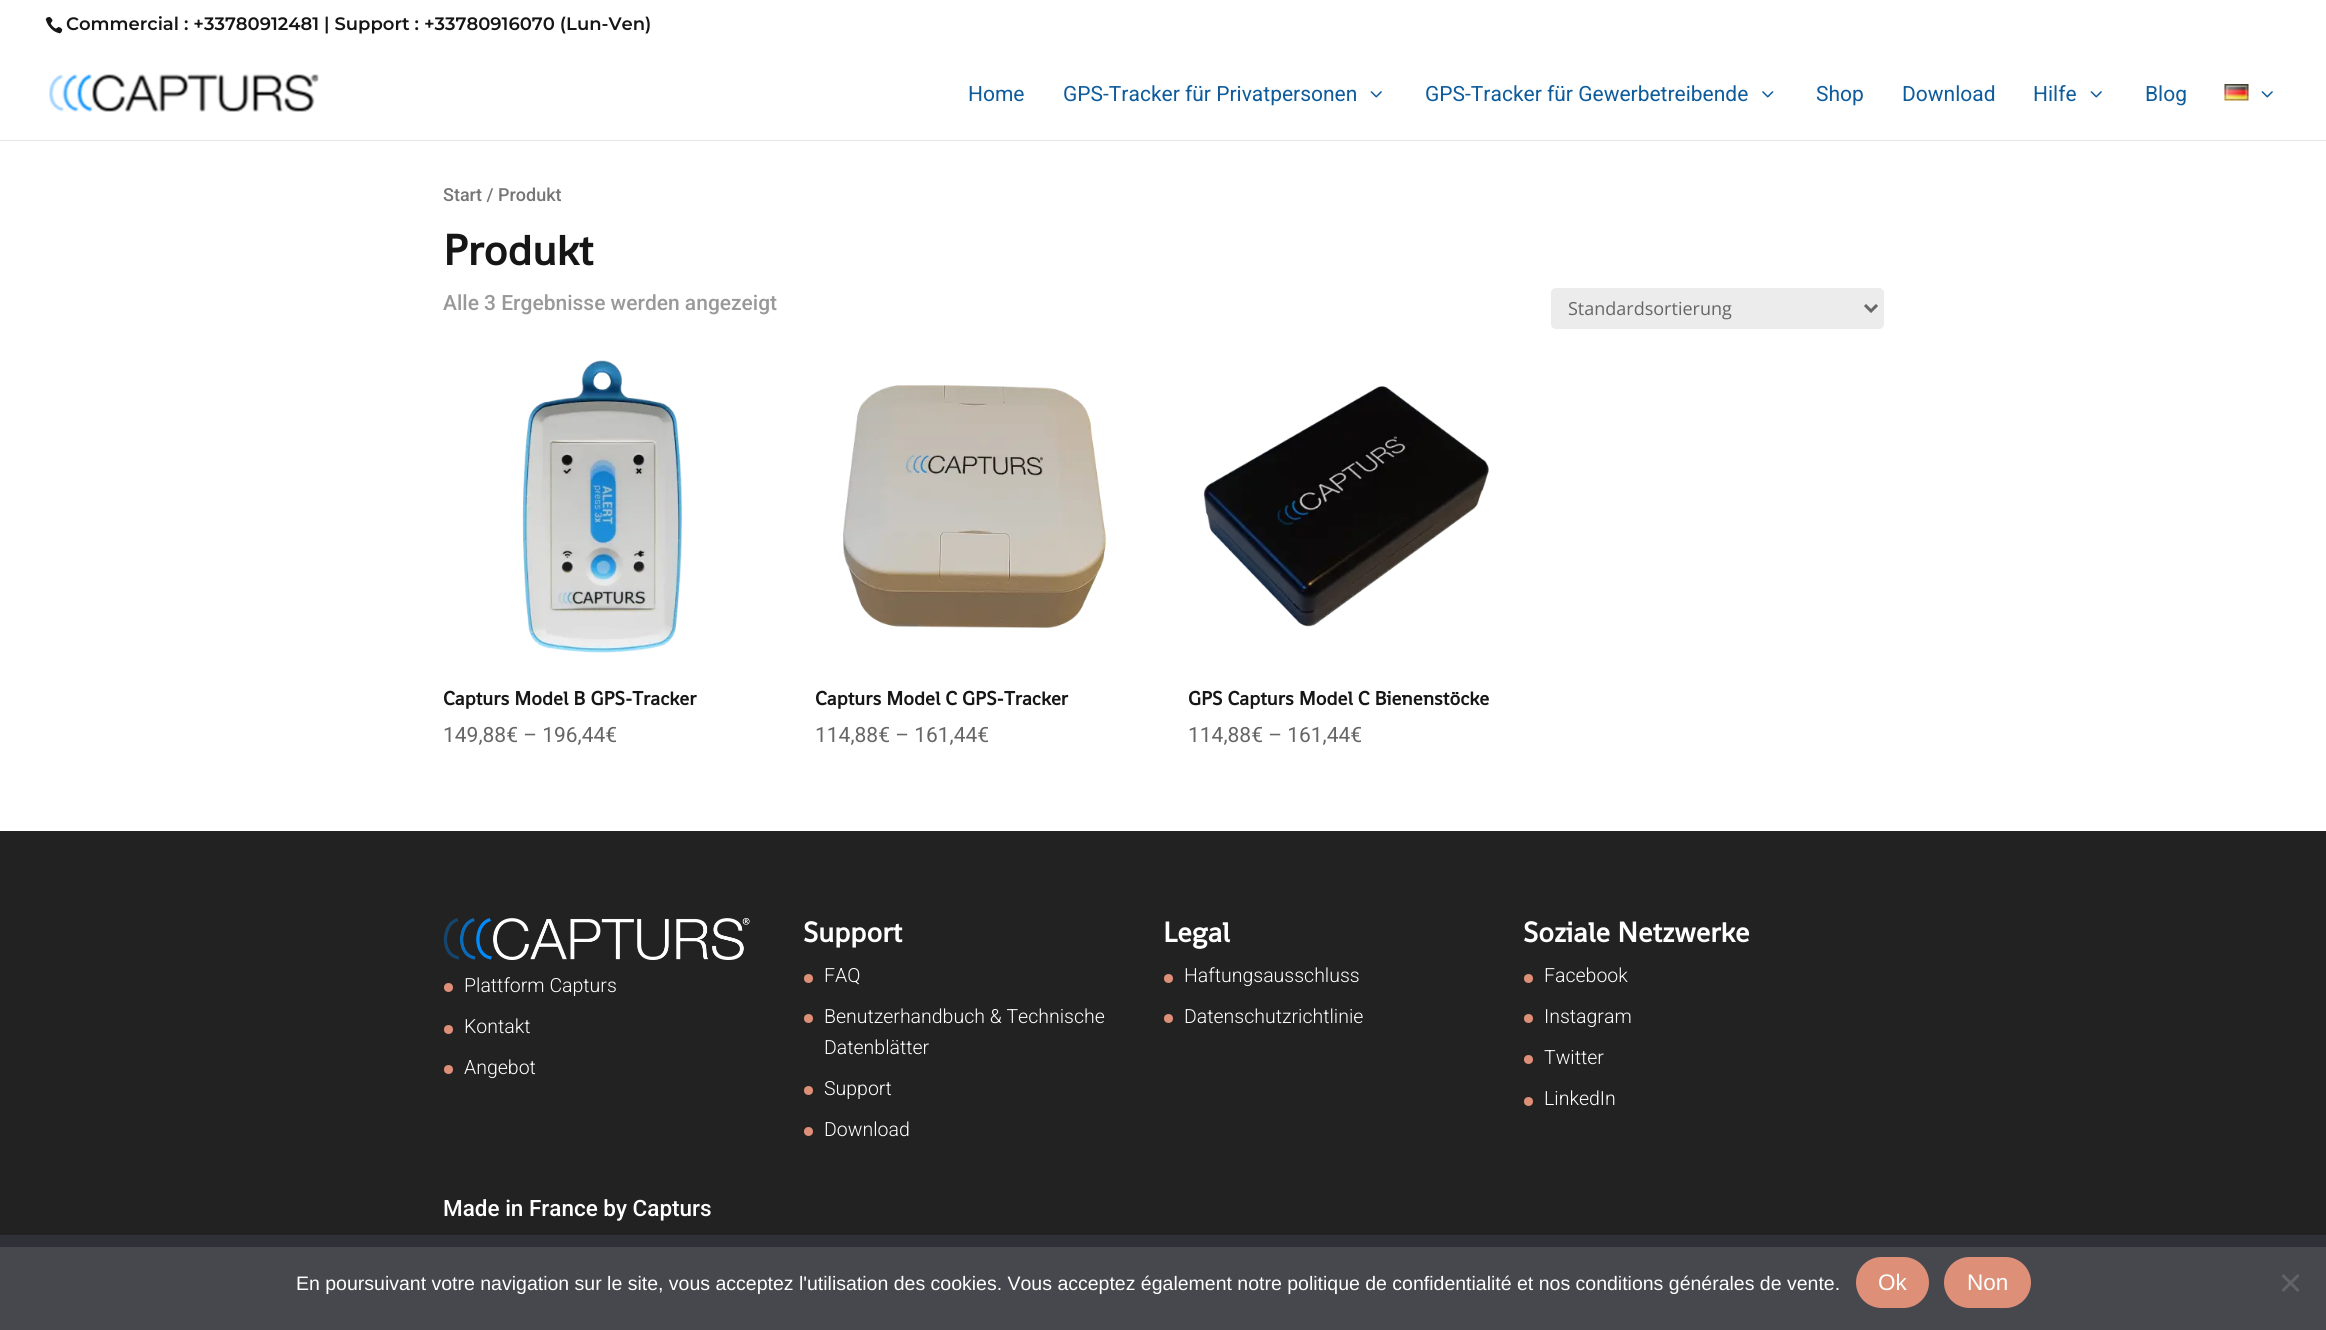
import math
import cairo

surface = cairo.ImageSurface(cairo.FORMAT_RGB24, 2326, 1330)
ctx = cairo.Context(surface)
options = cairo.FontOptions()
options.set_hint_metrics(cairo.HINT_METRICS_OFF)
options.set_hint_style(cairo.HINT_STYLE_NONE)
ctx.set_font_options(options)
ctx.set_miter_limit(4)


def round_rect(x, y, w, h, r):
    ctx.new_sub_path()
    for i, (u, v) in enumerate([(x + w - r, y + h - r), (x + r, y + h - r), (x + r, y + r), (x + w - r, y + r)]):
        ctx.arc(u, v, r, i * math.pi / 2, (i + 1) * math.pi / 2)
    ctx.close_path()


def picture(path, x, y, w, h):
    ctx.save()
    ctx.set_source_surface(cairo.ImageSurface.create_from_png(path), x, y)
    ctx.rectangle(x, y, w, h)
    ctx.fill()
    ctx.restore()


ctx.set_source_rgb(1, 1, 1)
ctx.paint()
ctx.set_source_rgb(0.278, 0.278, 0.306)
ctx.rectangle(0, 1247, 2326, 83)
ctx.fill()
picture("img1.png", 45, 16, 18, 18)
ctx.select_font_face("Montserrat SemiBold")
ctx.set_font_size(18)
ctx.set_source_rgb(0.086, 0.086, 0.086)
ctx.move_to(66, 30)
ctx.show_text("Commercial : +33780912481 | Support : +33780916070 (Lun-Ven)")
ctx.set_source_rgb(0.902, 0.902, 0.902)
ctx.new_path()
ctx.move_to(0, 140)
ctx.line_to(0, 141)
ctx.line_to(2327, 141)
ctx.line_to(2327, 48)
ctx.line_to(2326, 48)
ctx.line_to(2326, 140)
ctx.close_path()
ctx.fill()
picture("img2.png", 49, 74, 270, 38)
ctx.select_font_face("Roboto")
ctx.set_font_size(21)
ctx.set_source_rgb(0.055, 0.361, 0.612)
ctx.move_to(968, 101)
ctx.show_text("Home")
ctx.move_to(1063, 101)
ctx.show_text("GPS-Tracker für Privatpersonen")
picture("img3.png", 1370, 91, 12, 7)
ctx.move_to(1425, 101)
ctx.show_text("GPS-Tracker für Gewerbetreibende")
picture("img4.png", 1762, 91, 12, 7)
ctx.move_to(1816, 101)
ctx.show_text("Shop")
ctx.move_to(1902, 101)
ctx.show_text("Download")
ctx.move_to(2033, 101)
ctx.show_text("Hilfe")
picture("img3.png", 2090, 91, 12, 7)
ctx.move_to(2145, 101)
ctx.show_text("Blog")
picture("img5.png", 2224, 84, 25, 17)
picture("img3.png", 2261, 91, 12, 7)
ctx.select_font_face("Roboto Medium")
ctx.set_font_size(18)
ctx.set_source_rgb(0.463, 0.463, 0.463)
ctx.move_to(443, 201)
ctx.show_text("Start / Produkt")
ctx.select_font_face("Shanti", cairo.FONT_SLANT_NORMAL, cairo.FONT_WEIGHT_BOLD)
ctx.set_font_size(43.5)
ctx.set_source_rgb(0.086, 0.086, 0.086)
ctx.move_to(443, 265)
ctx.show_text("Produkt")
ctx.select_font_face("Roboto Medium")
ctx.set_font_size(21)
ctx.set_source_rgb(0.6, 0.6, 0.6)
ctx.move_to(443, 310)
ctx.show_text("Alle 3 Ergebnisse werden angezeigt")
ctx.set_source_rgb(0.925, 0.925, 0.925)
round_rect(1551, 288, 333, 41, 5)
ctx.fill()
ctx.new_path()
ctx.move_to(1865, 305)
ctx.line_to(1871, 311)
ctx.line_to(1877, 305)
ctx.set_source_rgb(0.4, 0.4, 0.4)
ctx.set_line_width(3)
ctx.stroke()
ctx.select_font_face("Open Sans")
ctx.set_font_size(18)
ctx.move_to(1568, 315)
ctx.show_text("Standardsortierung")
picture("img6.png", 522, 360, 161, 293)
ctx.select_font_face("Shanti", cairo.FONT_SLANT_NORMAL, cairo.FONT_WEIGHT_BOLD)
ctx.set_font_size(19.5)
ctx.set_source_rgb(0.086, 0.086, 0.086)
ctx.move_to(443, 705)
ctx.show_text("Capturs Model B GPS-Tracker")
ctx.select_font_face("Roboto")
ctx.set_font_size(21)
ctx.set_source_rgb(0.4, 0.4, 0.4)
ctx.move_to(443, 742)
ctx.show_text("149,88€ – 196,44€")
picture("img7.png", 843, 385, 264, 243)
ctx.select_font_face("Shanti", cairo.FONT_SLANT_NORMAL, cairo.FONT_WEIGHT_BOLD)
ctx.set_font_size(19.5)
ctx.set_source_rgb(0.086, 0.086, 0.086)
ctx.move_to(815, 705)
ctx.show_text("Capturs Model C GPS-Tracker")
ctx.select_font_face("Roboto")
ctx.set_font_size(21)
ctx.set_source_rgb(0.4, 0.4, 0.4)
ctx.move_to(815, 742)
ctx.show_text("114,88€ – 161,44€")
picture("img8.png", 1203, 386, 286, 241)
ctx.select_font_face("Shanti", cairo.FONT_SLANT_NORMAL, cairo.FONT_WEIGHT_BOLD)
ctx.set_font_size(19.5)
ctx.set_source_rgb(0.086, 0.086, 0.086)
ctx.move_to(1188, 705)
ctx.show_text("GPS Capturs Model C Bienenstöcke")
ctx.select_font_face("Roboto")
ctx.set_font_size(21)
ctx.set_source_rgb(0.4, 0.4, 0.4)
ctx.move_to(1188, 742)
ctx.show_text("114,88€ – 161,44€")
ctx.set_source_rgb(0.133, 0.133, 0.133)
ctx.rectangle(0, 831, 2326, 404)
ctx.fill()
ctx.set_source_rgb(0.188, 0.188, 0.22)
ctx.rectangle(0, 1235, 2326, 12)
ctx.fill()
picture("img9.png", 444, 918, 306, 42)
ctx.set_source_rgb(0.867, 0.565, 0.467)
ctx.arc(448.5, 987.5, 4.5, 0, 2 * math.pi)
ctx.fill()
ctx.select_font_face("Roboto Light")
ctx.set_font_size(19.5)
ctx.set_source_rgb(1, 1, 1)
ctx.move_to(464, 992)
ctx.show_text("Plattform Capturs")
ctx.set_source_rgb(0.867, 0.565, 0.467)
ctx.new_path()
ctx.arc(448.5, 1029.5, 4.5, 0, 2 * math.pi)
ctx.fill()
ctx.set_source_rgb(1, 1, 1)
ctx.move_to(464, 1033)
ctx.show_text("Kontakt")
ctx.set_source_rgb(0.867, 0.565, 0.467)
ctx.new_path()
ctx.arc(448.5, 1069.5, 4.5, 0, 2 * math.pi)
ctx.fill()
ctx.set_source_rgb(1, 1, 1)
ctx.move_to(464, 1074)
ctx.show_text("Angebot")
ctx.select_font_face("Shanti", cairo.FONT_SLANT_NORMAL, cairo.FONT_WEIGHT_BOLD)
ctx.set_font_size(28.5)
ctx.move_to(803, 942)
ctx.show_text("Support")
ctx.set_source_rgb(0.867, 0.565, 0.467)
ctx.new_path()
ctx.arc(808.5, 978.5, 4.5, 0, 2 * math.pi)
ctx.fill()
ctx.select_font_face("Roboto Light")
ctx.set_font_size(19.5)
ctx.set_source_rgb(1, 1, 1)
ctx.move_to(824, 982)
ctx.show_text("FAQ")
ctx.set_source_rgb(0.867, 0.565, 0.467)
ctx.new_path()
ctx.arc(808.5, 1018.5, 4.5, 0, 2 * math.pi)
ctx.fill()
ctx.set_source_rgb(1, 1, 1)
ctx.move_to(824, 1023)
ctx.show_text("Benutzerhandbuch & Technische")
ctx.move_to(824, 1054)
ctx.show_text("Datenblätter")
ctx.set_source_rgb(0.867, 0.565, 0.467)
ctx.new_path()
ctx.arc(808.5, 1090.5, 4.5, 0, 2 * math.pi)
ctx.fill()
ctx.set_source_rgb(1, 1, 1)
ctx.move_to(824, 1095)
ctx.show_text("Support")
ctx.set_source_rgb(0.867, 0.565, 0.467)
ctx.new_path()
ctx.arc(808.5, 1131.5, 4.5, 0, 2 * math.pi)
ctx.fill()
ctx.set_source_rgb(1, 1, 1)
ctx.move_to(824, 1136)
ctx.show_text("Download")
ctx.select_font_face("Shanti", cairo.FONT_SLANT_NORMAL, cairo.FONT_WEIGHT_BOLD)
ctx.set_font_size(28.5)
ctx.move_to(1163, 942)
ctx.show_text("Legal")
ctx.set_source_rgb(0.867, 0.565, 0.467)
ctx.new_path()
ctx.arc(1168.5, 978.5, 4.5, 0, 2 * math.pi)
ctx.fill()
ctx.select_font_face("Roboto Light")
ctx.set_font_size(19.5)
ctx.set_source_rgb(1, 1, 1)
ctx.move_to(1184, 982)
ctx.show_text("Haftungsausschluss")
ctx.set_source_rgb(0.867, 0.565, 0.467)
ctx.new_path()
ctx.arc(1168.5, 1018.5, 4.5, 0, 2 * math.pi)
ctx.fill()
ctx.set_source_rgb(1, 1, 1)
ctx.move_to(1184, 1023)
ctx.show_text("Datenschutzrichtlinie")
ctx.select_font_face("Shanti", cairo.FONT_SLANT_NORMAL, cairo.FONT_WEIGHT_BOLD)
ctx.set_font_size(28.5)
ctx.move_to(1523, 942)
ctx.show_text("Soziale Netzwerke")
ctx.set_source_rgb(0.867, 0.565, 0.467)
ctx.new_path()
ctx.arc(1528.5, 978.5, 4.5, 0, 2 * math.pi)
ctx.fill()
ctx.select_font_face("Roboto Light")
ctx.set_font_size(19.5)
ctx.set_source_rgb(1, 1, 1)
ctx.move_to(1544, 982)
ctx.show_text("Facebook")
ctx.set_source_rgb(0.867, 0.565, 0.467)
ctx.new_path()
ctx.arc(1528.5, 1018.5, 4.5, 0, 2 * math.pi)
ctx.fill()
ctx.set_source_rgb(1, 1, 1)
ctx.move_to(1544, 1023)
ctx.show_text("Instagram")
ctx.set_source_rgb(0.867, 0.565, 0.467)
ctx.new_path()
ctx.arc(1528.5, 1059.5, 4.5, 0, 2 * math.pi)
ctx.fill()
ctx.set_source_rgb(1, 1, 1)
ctx.move_to(1544, 1064)
ctx.show_text("Twitter")
ctx.set_source_rgb(0.867, 0.565, 0.467)
ctx.new_path()
ctx.arc(1528.5, 1101.5, 4.5, 0, 2 * math.pi)
ctx.fill()
ctx.set_source_rgb(1, 1, 1)
ctx.move_to(1544, 1105)
ctx.show_text("LinkedIn")
ctx.select_font_face("Roboto Medium")
ctx.set_font_size(22.5)
ctx.move_to(443, 1216)
ctx.show_text("Made in France by Capturs")
ctx.select_font_face("Liberation Sans")
ctx.set_font_size(19.5)
ctx.move_to(296, 1290)
ctx.show_text("En poursuivant votre navigation sur le site, vous acceptez l'utilisation des cookies. Vous acceptez également notre politique de confidentialité et nos conditions générales de vente.")
ctx.set_source_rgb(0.867, 0.565, 0.467)
round_rect(1856, 1257, 73, 51, 25.5)
ctx.fill()
ctx.set_font_size(22.5)
ctx.set_source_rgb(1, 1, 1)
ctx.move_to(1878, 1290)
ctx.show_text("Ok")
ctx.set_source_rgb(0.867, 0.565, 0.467)
round_rect(1944, 1257, 87, 51, 25.5)
ctx.fill()
ctx.set_source_rgb(1, 1, 1)
ctx.move_to(1967, 1290)
ctx.show_text("Non")
ctx.set_source_rgb(0.388, 0.388, 0.404)
ctx.new_path()
ctx.move_to(2297.5, 1274)
ctx.line_to(2299.5, 1276)
ctx.line_to(2283.5, 1292)
ctx.line_to(2281.5, 1290)
ctx.close_path()
ctx.fill()
ctx.new_path()
ctx.move_to(2281.5, 1276)
ctx.line_to(2283.5, 1274)
ctx.line_to(2299.5, 1290)
ctx.line_to(2297.5, 1292)
ctx.close_path()
ctx.fill()
surface.write_to_png("page.png")
